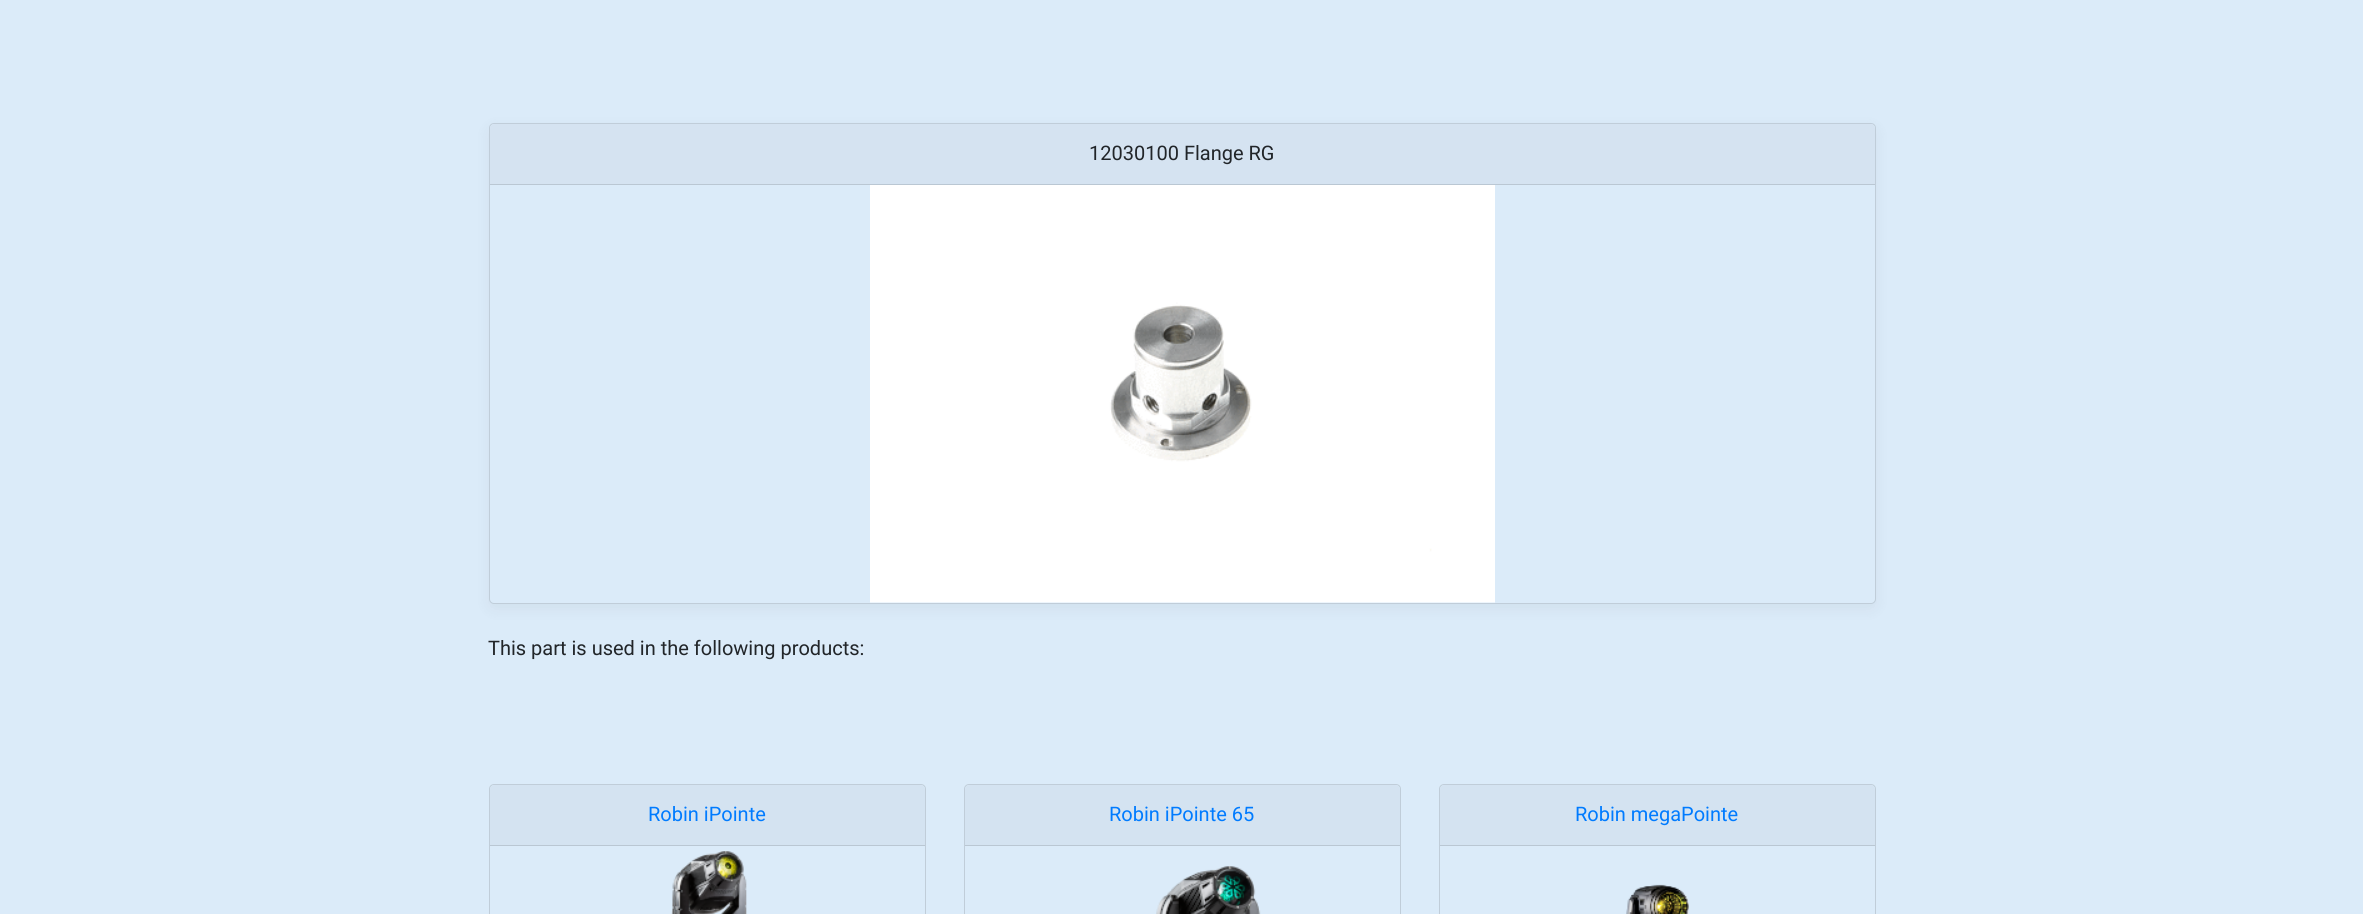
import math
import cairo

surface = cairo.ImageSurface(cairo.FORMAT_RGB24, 2363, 914)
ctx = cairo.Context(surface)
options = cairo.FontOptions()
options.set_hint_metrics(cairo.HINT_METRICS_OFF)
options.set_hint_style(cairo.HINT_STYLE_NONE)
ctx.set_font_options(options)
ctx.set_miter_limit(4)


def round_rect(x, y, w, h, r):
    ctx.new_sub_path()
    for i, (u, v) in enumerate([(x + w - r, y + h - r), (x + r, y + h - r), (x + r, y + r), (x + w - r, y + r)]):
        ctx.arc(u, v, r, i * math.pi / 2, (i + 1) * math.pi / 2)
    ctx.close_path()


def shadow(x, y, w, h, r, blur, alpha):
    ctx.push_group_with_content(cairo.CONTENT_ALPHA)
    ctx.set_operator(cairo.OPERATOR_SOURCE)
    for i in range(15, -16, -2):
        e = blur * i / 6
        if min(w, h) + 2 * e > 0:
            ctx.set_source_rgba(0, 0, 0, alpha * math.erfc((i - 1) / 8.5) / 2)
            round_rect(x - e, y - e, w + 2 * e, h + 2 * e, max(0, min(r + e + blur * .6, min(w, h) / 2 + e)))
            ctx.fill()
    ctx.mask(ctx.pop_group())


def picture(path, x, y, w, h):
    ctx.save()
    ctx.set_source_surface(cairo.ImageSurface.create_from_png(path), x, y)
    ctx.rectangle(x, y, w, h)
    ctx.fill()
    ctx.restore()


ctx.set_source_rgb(0.859, 0.918, 0.973)
ctx.paint()
ctx.set_source_rgb(0, 0, 0)
shadow(489, 128, 1387, 481, 5, 7.5, 0.05)
ctx.set_source_rgb(0.859, 0.918, 0.973)
round_rect(489.5, 123.5, 1386, 480, 4.5)
ctx.fill_preserve()
ctx.set_source_rgb(0.753, 0.804, 0.851)
ctx.set_line_width(1)
ctx.stroke()
ctx.set_source_rgb(0.835, 0.89, 0.945)
ctx.new_path()
ctx.move_to(495, 124)
ctx.line_to(1870, 124)
ctx.curve_to(1873, 124, 1875, 126, 1875, 129)
ctx.line_to(1875, 185)
ctx.line_to(490, 185)
ctx.line_to(490, 129)
ctx.curve_to(490, 126, 492, 124, 495, 124)
ctx.close_path()
ctx.fill()
ctx.set_source_rgb(0.729, 0.78, 0.827)
ctx.rectangle(490, 184, 1385, 1)
ctx.fill()
ctx.select_font_face("Roboto")
ctx.set_font_size(20)
ctx.set_source_rgb(0.129, 0.145, 0.161)
ctx.move_to(1089, 160)
ctx.show_text("12030100 Flange RG")
picture("img1.png", 870, 185, 625, 418)
ctx.move_to(488, 655)
ctx.show_text("This part is used in the following products:")
round_rect(489.5, 784.5, 436, 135, 4.5)
ctx.set_source_rgb(0.753, 0.804, 0.851)
ctx.stroke()
ctx.set_source_rgb(0.831, 0.89, 0.945)
ctx.new_path()
ctx.move_to(495, 785)
ctx.line_to(920, 785)
ctx.curve_to(923, 785, 925, 787, 925, 790)
ctx.line_to(925, 846)
ctx.line_to(490, 846)
ctx.line_to(490, 790)
ctx.curve_to(490, 787, 492, 785, 495, 785)
ctx.close_path()
ctx.fill()
ctx.set_source_rgb(0.729, 0.78, 0.827)
ctx.rectangle(490, 845, 435, 1)
ctx.fill()
ctx.set_source_rgb(0, 0.482, 1)
ctx.move_to(648, 821)
ctx.show_text("Robin iPointe")
picture("img2.png", 671, 851, 76, 63)
round_rect(964.5, 784.5, 436, 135, 4.5)
ctx.set_source_rgb(0.753, 0.804, 0.851)
ctx.stroke()
ctx.set_source_rgb(0.831, 0.89, 0.945)
ctx.new_path()
ctx.move_to(970, 785)
ctx.line_to(1395, 785)
ctx.curve_to(1398, 785, 1400, 787, 1400, 790)
ctx.line_to(1400, 846)
ctx.line_to(965, 846)
ctx.line_to(965, 790)
ctx.curve_to(965, 787, 967, 785, 970, 785)
ctx.close_path()
ctx.fill()
ctx.set_source_rgb(0.729, 0.78, 0.827)
ctx.rectangle(965, 845, 435, 1)
ctx.fill()
ctx.set_source_rgb(0, 0.482, 1)
ctx.move_to(1109, 821)
ctx.show_text("Robin iPointe 65")
picture("img3.png", 1156, 866, 105, 48)
round_rect(1439.5, 784.5, 436, 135, 4.5)
ctx.set_source_rgb(0.753, 0.804, 0.851)
ctx.stroke()
ctx.set_source_rgb(0.831, 0.89, 0.945)
ctx.new_path()
ctx.move_to(1445, 785)
ctx.line_to(1870, 785)
ctx.curve_to(1873, 785, 1875, 787, 1875, 790)
ctx.line_to(1875, 846)
ctx.line_to(1440, 846)
ctx.line_to(1440, 790)
ctx.curve_to(1440, 787, 1442, 785, 1445, 785)
ctx.close_path()
ctx.fill()
ctx.set_source_rgb(0.729, 0.78, 0.827)
ctx.rectangle(1440, 845, 435, 1)
ctx.fill()
ctx.set_source_rgb(0, 0.482, 1)
ctx.move_to(1575, 821)
ctx.show_text("Robin megaPointe")
picture("img4.png", 1626, 884, 63, 30)
surface.write_to_png("page.png")
